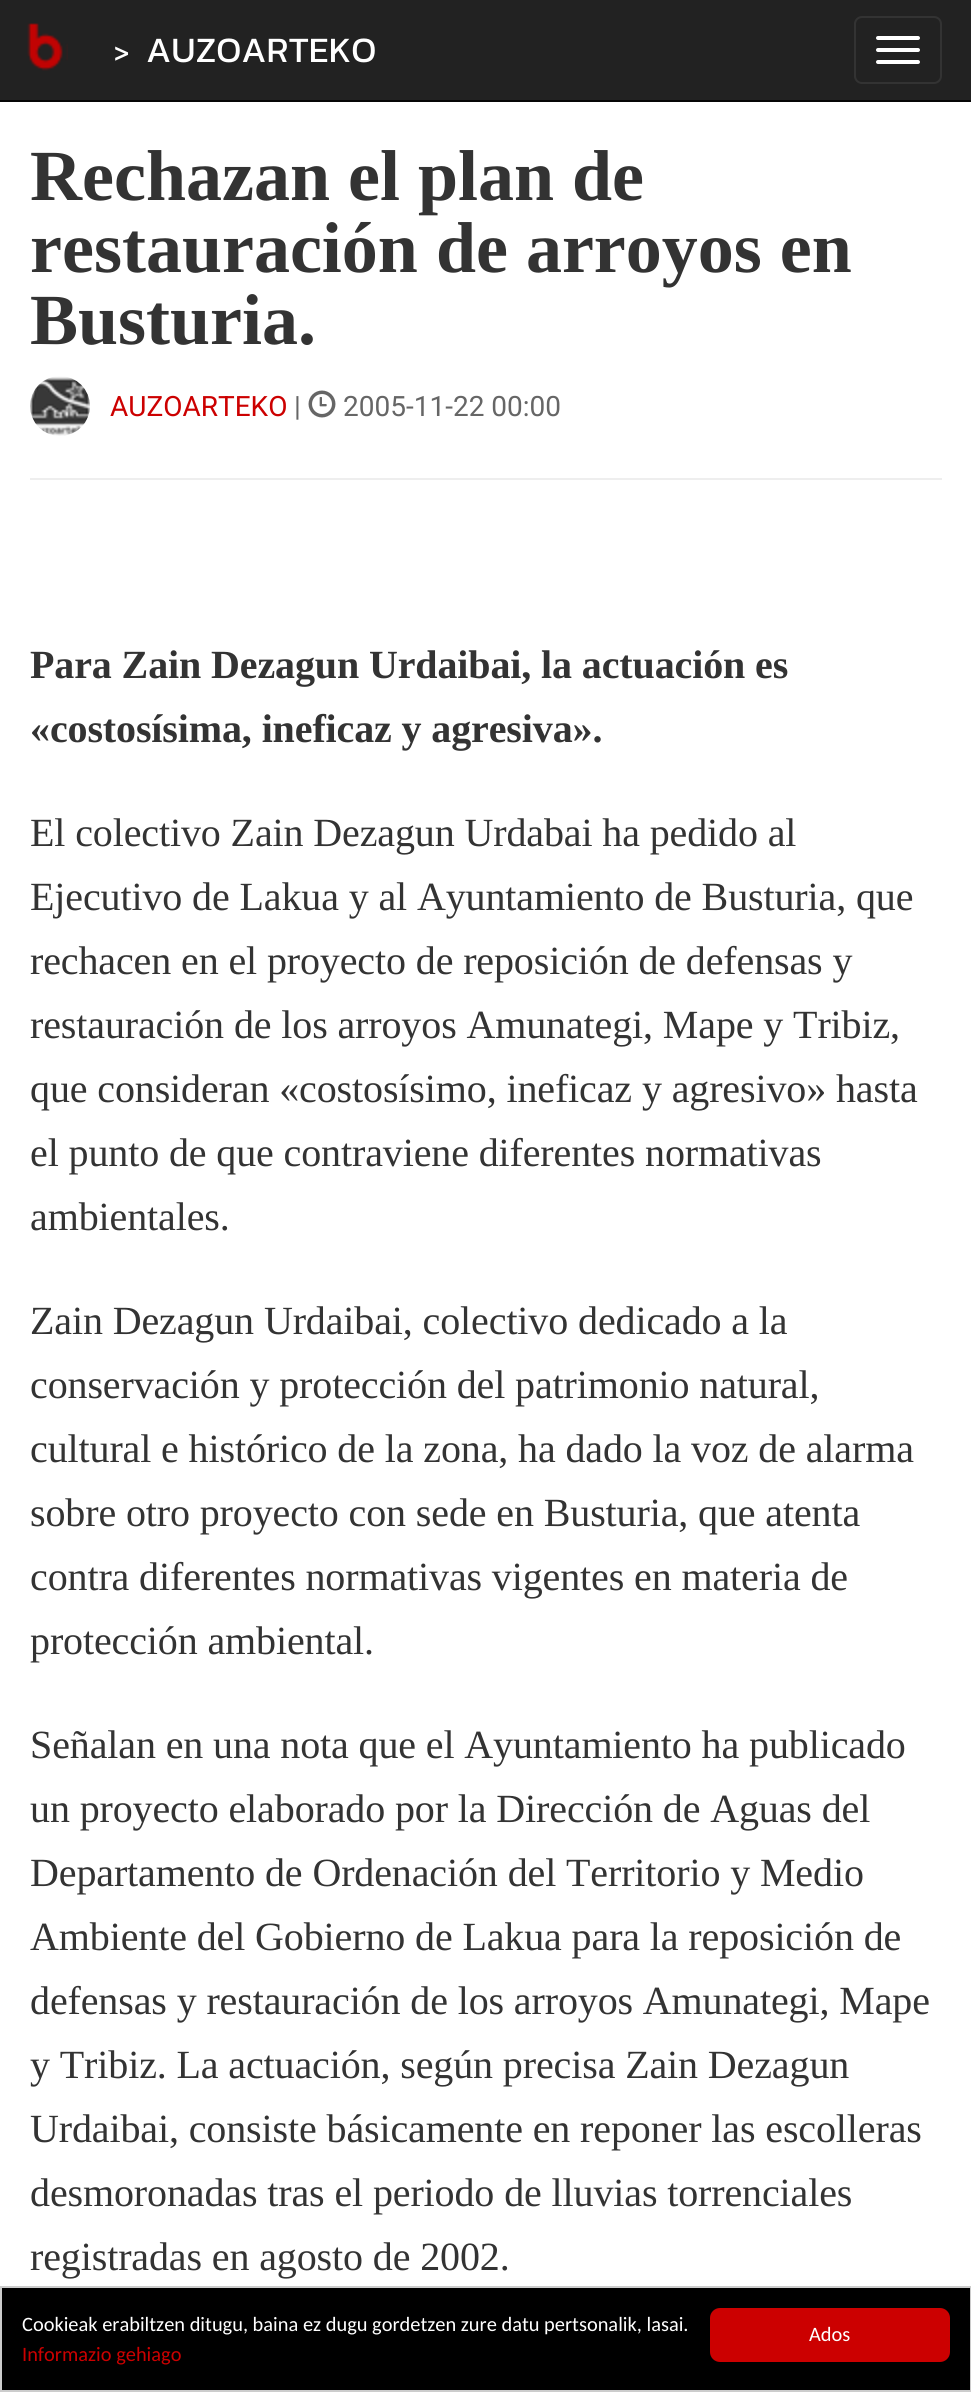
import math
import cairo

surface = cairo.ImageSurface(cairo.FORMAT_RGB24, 971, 2392)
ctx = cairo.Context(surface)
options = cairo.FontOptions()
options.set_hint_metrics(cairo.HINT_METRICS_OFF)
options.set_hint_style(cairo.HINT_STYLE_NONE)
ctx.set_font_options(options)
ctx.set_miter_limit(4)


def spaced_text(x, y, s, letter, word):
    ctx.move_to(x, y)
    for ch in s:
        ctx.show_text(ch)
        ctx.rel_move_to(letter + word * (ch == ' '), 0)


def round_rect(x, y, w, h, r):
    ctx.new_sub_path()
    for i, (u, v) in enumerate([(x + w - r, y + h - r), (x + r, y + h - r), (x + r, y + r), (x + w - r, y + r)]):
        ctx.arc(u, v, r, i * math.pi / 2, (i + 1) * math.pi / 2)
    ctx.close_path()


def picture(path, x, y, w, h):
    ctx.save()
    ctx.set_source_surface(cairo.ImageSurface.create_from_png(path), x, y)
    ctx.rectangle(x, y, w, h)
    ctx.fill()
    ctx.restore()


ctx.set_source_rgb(1, 1, 1)
ctx.paint()
ctx.set_source_rgb(0.133, 0.133, 0.133)
ctx.rectangle(0, 0, 971, 100)
ctx.fill()
ctx.set_source_rgb(0.031, 0.031, 0.031)
ctx.rectangle(0, 100, 971, 2)
ctx.fill()
picture("img1.png", 27, 23, 41, 48)
ctx.select_font_face("Kanit")
ctx.set_font_size(28)
ctx.set_source_rgb(1, 1, 1)
ctx.move_to(114, 62)
ctx.show_text(">")
ctx.set_font_size(36)
ctx.move_to(146, 62)
ctx.show_text("AUZOARTEKO")
round_rect(855, 17, 86, 66, 7)
ctx.set_source_rgb(0.2, 0.2, 0.2)
ctx.stroke()
ctx.set_source_rgb(1, 1, 1)
round_rect(876, 36, 44, 4, 2)
ctx.fill()
round_rect(876, 48, 44, 4, 2)
ctx.fill()
round_rect(876, 60, 44, 4, 2)
ctx.fill()
ctx.select_font_face("Liberation Serif", cairo.FONT_SLANT_NORMAL, cairo.FONT_WEIGHT_BOLD)
ctx.set_font_size(72)
ctx.set_source_rgb(0.2, 0.2, 0.2)
ctx.move_to(30, 200)
ctx.show_text("Rechazan el plan de")
ctx.move_to(30, 272)
ctx.show_text("restauración de arroyos en")
ctx.move_to(30, 344)
ctx.show_text("Busturia.")
picture("img2.png", 30, 376, 60, 60)
ctx.select_font_face("Roboto")
ctx.set_font_size(28)
ctx.set_source_rgb(0.8, 0, 0)
ctx.move_to(110, 416)
ctx.show_text("AUZOARTEKO")
ctx.set_source_rgb(0.4, 0.4, 0.4)
ctx.move_to(294, 416)
ctx.show_text("|")
picture("img3.png", 308, 390, 28, 28)
ctx.move_to(343, 416)
ctx.show_text("2005-11-22 00:00")
ctx.set_source_rgb(0.933, 0.933, 0.933)
ctx.rectangle(30, 478, 912, 2)
ctx.fill()
ctx.select_font_face("Liberation Serif", cairo.FONT_SLANT_NORMAL, cairo.FONT_WEIGHT_BOLD)
ctx.set_font_size(40)
ctx.set_source_rgb(0.2, 0.2, 0.2)
spaced_text(30, 678, "Para Zain Dezagun Urdaibai, la actuación es", -0.12, 0)
spaced_text(30, 742, "«costosísima, ineficaz y agresiva».", -0.12, 0)
ctx.select_font_face("Liberation Serif")
spaced_text(30, 846, "El colectivo Zain Dezagun Urdabai ha pedido al", -0.12, 0)
spaced_text(30, 910, "Ejecutivo de Lakua y al Ayuntamiento de Busturia, que", -0.12, 0)
spaced_text(30, 974, "rechacen en el proyecto de reposición de defensas y", -0.12, 0)
spaced_text(30, 1038, "restauración de los arroyos Amunategi, Mape y Tribiz,", -0.12, 0)
spaced_text(30, 1102, "que consideran «costosísimo, ineficaz y agresivo» hasta", -0.12, 0)
spaced_text(30, 1166, "el punto de que contraviene diferentes normativas", -0.12, 0)
spaced_text(30, 1230, "ambientales.", -0.12, 0)
spaced_text(30, 1334, "Zain Dezagun Urdaibai, colectivo dedicado a la", -0.12, 0)
spaced_text(30, 1398, "conservación y protección del patrimonio natural,", -0.12, 0)
spaced_text(30, 1462, "cultural e histórico de la zona, ha dado la voz de alarma", -0.12, 0)
spaced_text(30, 1526, "sobre otro proyecto con sede en Busturia, que atenta", -0.12, 0)
spaced_text(30, 1590, "contra diferentes normativas vigentes en materia de", -0.12, 0)
spaced_text(30, 1654, "protección ambiental.", -0.12, 0)
spaced_text(30, 1758, "Señalan en una nota que el Ayuntamiento ha publicado", -0.12, 0)
spaced_text(30, 1822, "un proyecto elaborado por la Dirección de Aguas del", -0.12, 0)
spaced_text(30, 1886, "Departamento de Ordenación del Territorio y Medio", -0.12, 0)
spaced_text(30, 1950, "Ambiente del Gobierno de Lakua para la reposición de", -0.12, 0)
spaced_text(30, 2014, "defensas y restauración de los arroyos Amunategi, Mape", -0.12, 0)
spaced_text(30, 2078, "y Tribiz. La actuación, según precisa Zain Dezagun", -0.12, 0)
spaced_text(30, 2142, "Urdaibai, consiste básicamente en reponer las escolleras", -0.12, 0)
spaced_text(30, 2206, "desmoronadas tras el periodo de lluvias torrenciales", -0.12, 0)
spaced_text(30, 2270, "registradas en agosto de 2002.", -0.12, 0)
ctx.set_source_rgb(0, 0, 0)
ctx.rectangle(1, 2287, 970, 104)
ctx.fill_preserve()
ctx.set_source_rgb(0.8, 0.8, 0.8)
ctx.stroke()
ctx.select_font_face("Carlito")
ctx.set_font_size(20.4)
ctx.set_source_rgb(1, 1, 1)
ctx.move_to(22, 2331)
ctx.show_text("Cookieak erabiltzen ditugu, baina ez dugu gordetzen zure datu pertsonalik, lasai.")
ctx.set_source_rgb(0.8, 0, 0)
ctx.move_to(22, 2361)
ctx.show_text("Informazio gehiago")
round_rect(710, 2308, 240, 54, 10)
ctx.fill()
ctx.set_source_rgb(1, 1, 1)
ctx.move_to(809, 2341)
ctx.show_text("Ados")
surface.write_to_png("page.png")
